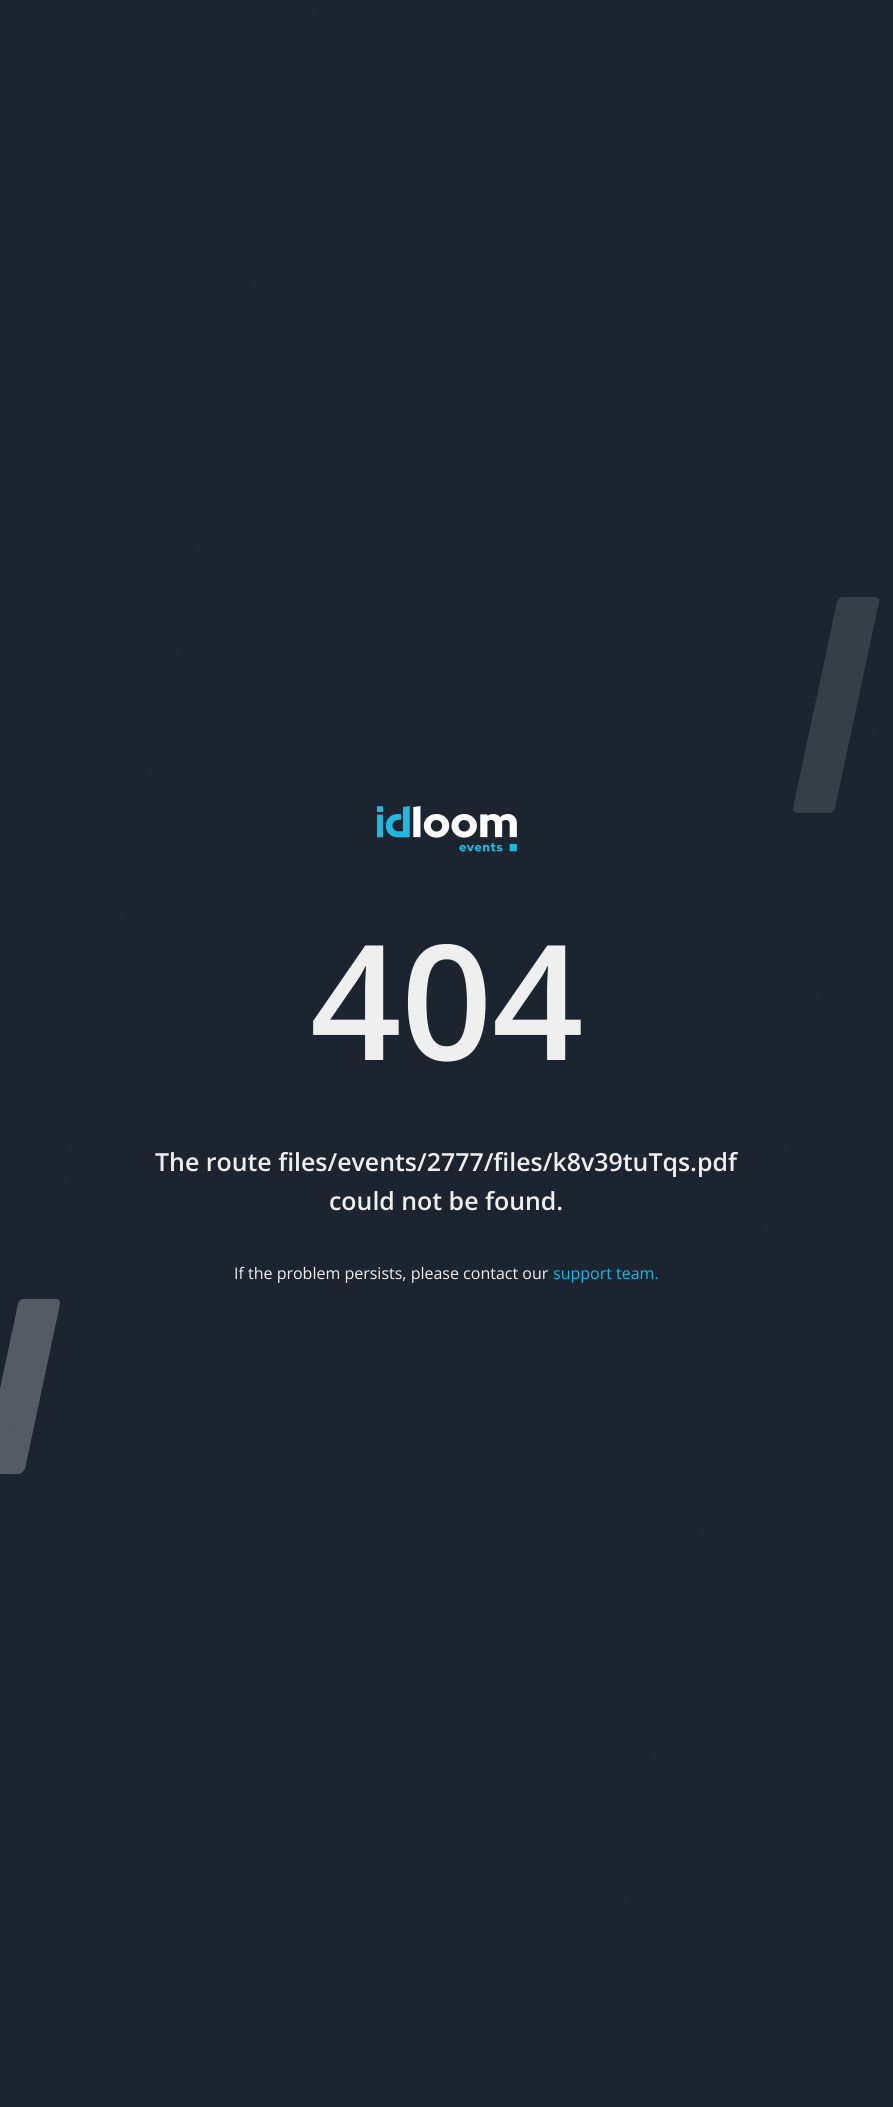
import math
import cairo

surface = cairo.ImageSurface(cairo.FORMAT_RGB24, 893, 2107)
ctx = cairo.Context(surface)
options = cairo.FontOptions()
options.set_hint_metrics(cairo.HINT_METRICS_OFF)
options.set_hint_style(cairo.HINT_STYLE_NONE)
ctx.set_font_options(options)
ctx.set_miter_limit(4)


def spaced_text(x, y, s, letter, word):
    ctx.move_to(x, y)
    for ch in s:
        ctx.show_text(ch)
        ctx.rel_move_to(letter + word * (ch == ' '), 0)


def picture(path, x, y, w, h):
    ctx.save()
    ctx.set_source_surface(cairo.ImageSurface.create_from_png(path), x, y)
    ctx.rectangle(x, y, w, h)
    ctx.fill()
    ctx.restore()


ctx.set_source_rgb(0.106, 0.141, 0.184)
ctx.paint()
ctx.set_source_rgb(0.114, 0.149, 0.196)
ctx.new_path()
ctx.move_to(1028, 0)
ctx.line_to(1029, 0)
ctx.line_to(578, 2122)
ctx.line_to(577, 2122)
ctx.close_path()
ctx.fill()
ctx.new_path()
ctx.move_to(315, 0)
ctx.line_to(316, 0)
ctx.line_to(-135, 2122)
ctx.line_to(-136, 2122)
ctx.close_path()
ctx.fill()
ctx.set_source_rgba(1, 1, 1, 0.12)
ctx.new_path()
ctx.move_to(843, 597)
ctx.line_to(875, 597)
ctx.curve_to(878, 597, 880, 599, 879, 602)
ctx.line_to(835, 808)
ctx.curve_to(835, 811, 832, 813, 829, 813)
ctx.line_to(797, 813)
ctx.curve_to(795, 813, 793, 811, 793, 808)
ctx.line_to(837, 602)
ctx.curve_to(838, 599, 841, 597, 843, 597)
ctx.close_path()
ctx.fill()
ctx.set_source_rgba(1, 1, 1, 0.25)
ctx.new_path()
ctx.move_to(24, 1299)
ctx.line_to(56, 1299)
ctx.curve_to(59, 1299, 60, 1301, 60, 1304)
ctx.line_to(25, 1469)
ctx.curve_to(24, 1471, 21, 1474, 19, 1474)
ctx.line_to(-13, 1474)
ctx.curve_to(-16, 1474, -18, 1471, -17, 1469)
ctx.line_to(18, 1304)
ctx.curve_to(18, 1301, 21, 1299, 24, 1299)
ctx.close_path()
ctx.fill()
picture("img1.png", 377, 806, 140, 46)
ctx.select_font_face("Open Sans SemiBold")
ctx.set_font_size(160)
ctx.set_source_rgb(0.937, 0.937, 0.937)
spaced_text(310, 1060, "404", -0.5, 0)
ctx.set_font_size(24.9)
ctx.move_to(155, 1171)
ctx.show_text("The route files/events/2777/files/k8v39tuTqs.pdf")
ctx.move_to(329, 1210)
ctx.show_text("could not be found.")
ctx.select_font_face("Open Sans")
ctx.set_font_size(16)
ctx.move_to(234, 1279)
ctx.show_text("If the problem persists, please contact our")
ctx.set_source_rgb(0.11, 0.718, 0.875)
ctx.move_to(553, 1279)
ctx.show_text("support team.")
surface.write_to_png("page.png")
